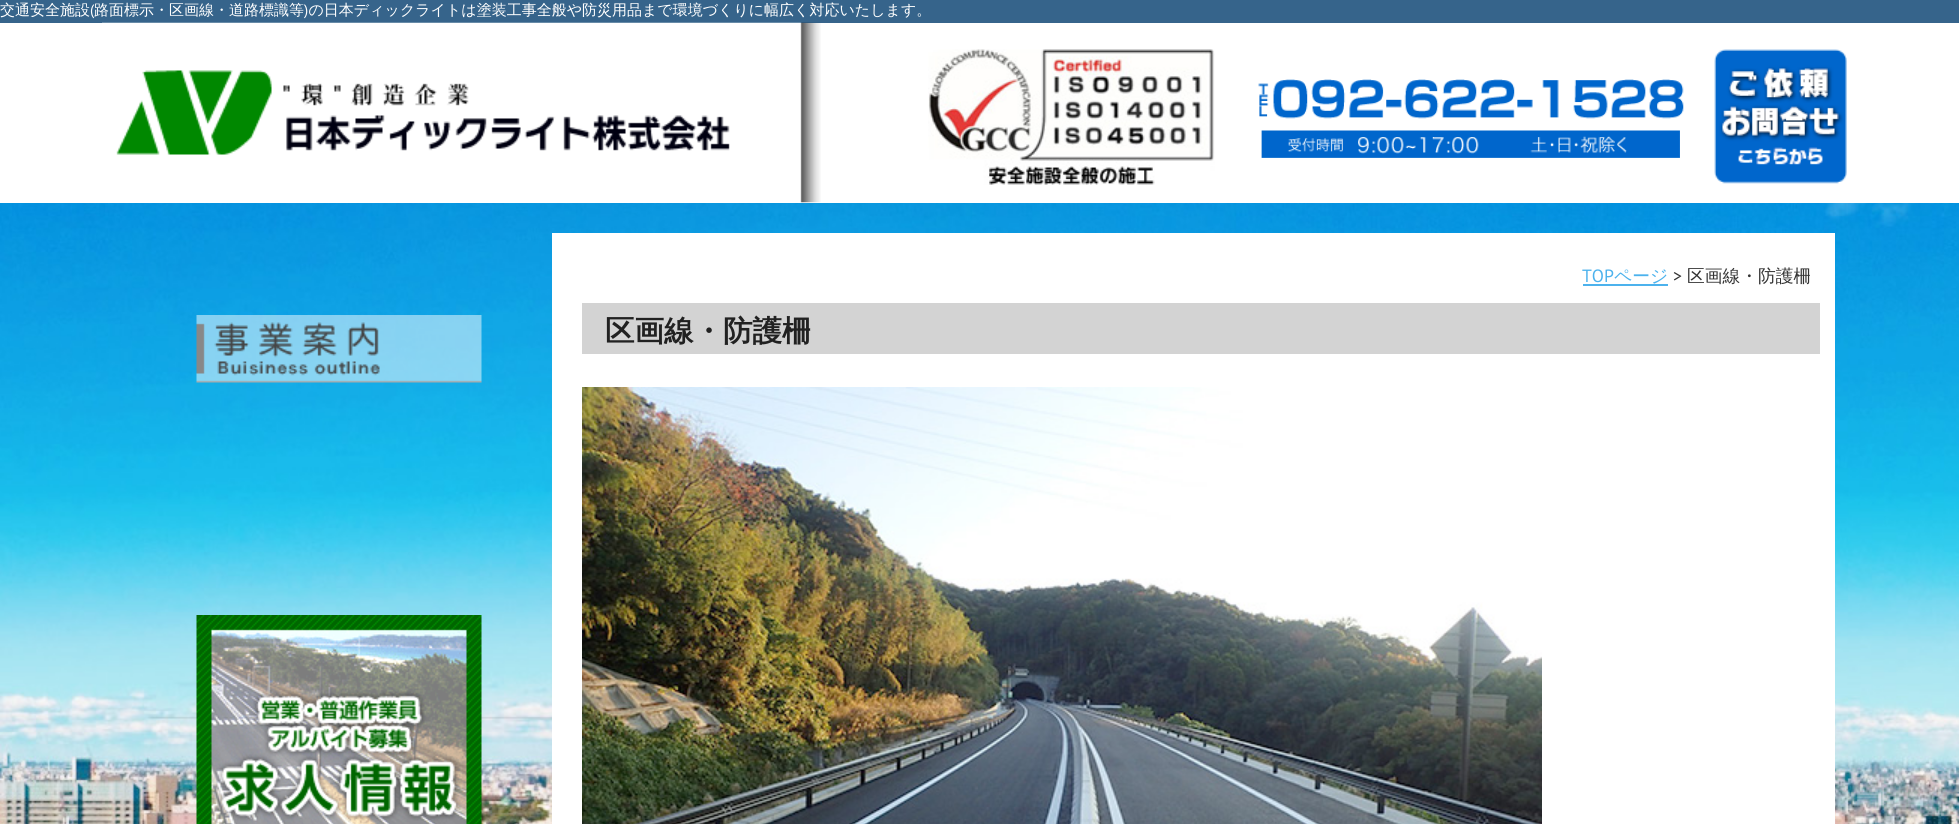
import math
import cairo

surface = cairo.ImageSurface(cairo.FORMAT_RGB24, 1959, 824)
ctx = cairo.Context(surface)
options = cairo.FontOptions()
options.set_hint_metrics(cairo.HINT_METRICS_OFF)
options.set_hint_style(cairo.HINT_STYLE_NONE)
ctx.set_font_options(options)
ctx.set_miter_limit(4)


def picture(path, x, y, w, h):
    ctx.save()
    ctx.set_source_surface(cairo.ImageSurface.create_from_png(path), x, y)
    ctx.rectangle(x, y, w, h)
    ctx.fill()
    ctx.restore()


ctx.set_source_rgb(1, 1, 1)
ctx.paint()
picture("img1.png", 0, 203, 1959, 621)
ctx.set_source_rgb(0.212, 0.392, 0.545)
ctx.rectangle(0, 0, 1959, 23)
ctx.fill()
ctx.select_font_face("WenQuanYi Zen Hei Medium")
ctx.set_font_size(15)
ctx.set_source_rgb(1, 1, 1)
ctx.move_to(0, 15)
ctx.show_text("交通安全施設")
ctx.select_font_face("PT Sans")
ctx.move_to(90, 15)
ctx.show_text("(")
ctx.select_font_face("WenQuanYi Zen Hei Medium")
ctx.move_to(94, 15)
ctx.show_text("路面標示・区画線・道路標識等 の日本ディックライトは塗装工事全般や防災用品まで環境づくりに幅広く対応いたします。")
ctx.select_font_face("PT Sans")
ctx.move_to(304, 15)
ctx.show_text(")")
picture("img2.png", 102, 22, 719, 181)
picture("img3.png", 928, 49, 287, 136)
picture("img4.png", 1258, 79, 426, 79)
picture("img5.png", 1714, 49, 133, 135)
ctx.rectangle(552, 233, 1283, 591)
ctx.fill()
ctx.set_font_size(17.75)
ctx.set_source_rgb(0.298, 0.698, 0.929)
ctx.move_to(1582, 282)
ctx.show_text("TOP")
ctx.select_font_face("WenQuanYi Zen Hei Medium")
ctx.move_to(1614, 282)
ctx.show_text("ページ")
ctx.rectangle(1583, 284, 85, 2)
ctx.fill()
ctx.select_font_face("PT Sans")
ctx.set_source_rgb(0.2, 0.2, 0.2)
ctx.move_to(1673, 282)
ctx.show_text(">")
ctx.select_font_face("WenQuanYi Zen Hei Medium")
ctx.move_to(1687, 282)
ctx.show_text("区画線・防護柵")
ctx.set_source_rgb(0.827, 0.827, 0.827)
ctx.rectangle(582, 303, 1238, 51)
ctx.fill()
ctx.select_font_face("WenQuanYi Zen Hei", cairo.FONT_SLANT_NORMAL, cairo.FONT_WEIGHT_BOLD)
ctx.set_font_size(29.5)
ctx.set_source_rgb(0.129, 0.129, 0.129)
ctx.move_to(605, 341)
ctx.show_text("区画線・防護柵")
picture("img6.png", 582, 387, 960, 437)
picture("img7.png", 196, 315, 286, 68)
picture("img8.png", 196, 615, 286, 209)
surface.write_to_png("page.png")
